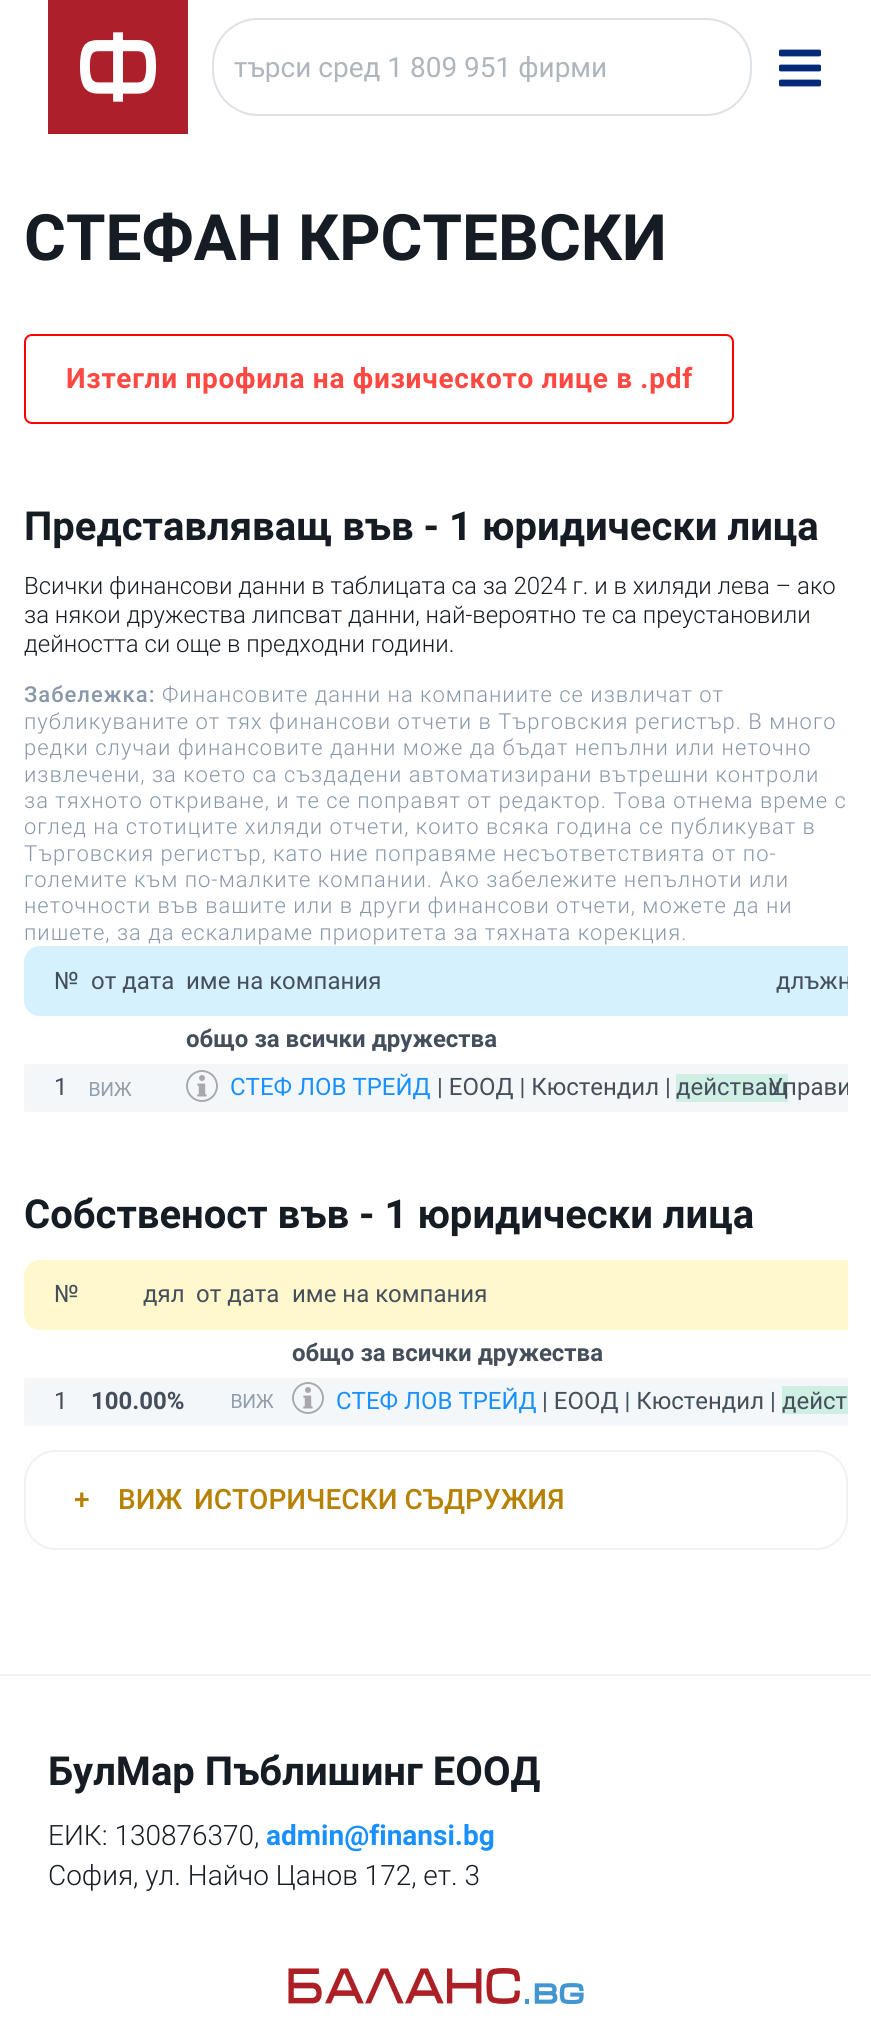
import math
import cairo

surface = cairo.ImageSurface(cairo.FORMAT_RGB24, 871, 2027)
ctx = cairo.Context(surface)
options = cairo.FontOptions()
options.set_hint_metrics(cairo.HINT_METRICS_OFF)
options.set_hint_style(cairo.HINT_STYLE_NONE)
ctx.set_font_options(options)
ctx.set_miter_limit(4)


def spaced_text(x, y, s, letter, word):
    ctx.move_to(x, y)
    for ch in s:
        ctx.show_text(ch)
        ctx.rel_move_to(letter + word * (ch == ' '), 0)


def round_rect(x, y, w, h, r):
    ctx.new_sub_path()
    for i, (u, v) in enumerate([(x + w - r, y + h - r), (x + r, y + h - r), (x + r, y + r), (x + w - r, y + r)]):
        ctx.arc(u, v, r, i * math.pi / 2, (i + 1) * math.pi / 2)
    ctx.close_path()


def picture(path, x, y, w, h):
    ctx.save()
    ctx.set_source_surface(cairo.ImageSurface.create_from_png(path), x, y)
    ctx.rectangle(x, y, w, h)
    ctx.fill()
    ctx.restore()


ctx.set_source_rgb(1, 1, 1)
ctx.paint()
ctx.set_source_rgb(0.682, 0.122, 0.173)
ctx.rectangle(48, 0, 140, 134)
ctx.fill()
picture("img1.png", 80, 32, 76, 70)
round_rect(213, 19, 538, 96, 45)
ctx.set_source_rgb(0.871, 0.886, 0.902)
ctx.stroke()
ctx.save()
ctx.rectangle(234, 50, 468, 32)
ctx.clip()
ctx.select_font_face("Roboto")
ctx.set_font_size(28)
ctx.set_source_rgb(0.678, 0.71, 0.741)
ctx.move_to(234, 77)
ctx.show_text("търси сред 1 809 951 фирми")
ctx.restore()
picture("img2.png", 779, 49, 42, 38)
ctx.select_font_face("Roboto", cairo.FONT_SLANT_NORMAL, cairo.FONT_WEIGHT_BOLD)
ctx.set_font_size(64)
ctx.set_source_rgb(0.086, 0.11, 0.141)
ctx.move_to(24, 260)
ctx.show_text("СТЕФАН КРСТЕВСКИ")
round_rect(25, 335, 708, 88, 7)
ctx.set_source_rgb(1, 0, 0)
ctx.stroke()
ctx.set_font_size(28)
ctx.set_source_rgb(1, 0.282, 0.259)
spaced_text(66, 388, "Изтегли профила на физическото лице в .pdf", 0.7, 0)
ctx.set_font_size(40)
ctx.set_source_rgb(0.086, 0.11, 0.141)
ctx.move_to(24, 540)
ctx.show_text("Представляващ във - 1 юридически лица")
ctx.select_font_face("Roboto Light")
ctx.set_font_size(24)
ctx.move_to(24, 594)
ctx.show_text("Всички финансови данни в таблицата са за 2024 г. и в хиляди лева – ако")
ctx.move_to(24, 623)
ctx.show_text("за някои дружества липсват данни, най-вероятно те са преустановили")
ctx.move_to(24, 652)
ctx.show_text("дейността си още в предходни години.")
ctx.select_font_face("Roboto Medium")
ctx.set_font_size(22)
ctx.set_source_rgb(0.533, 0.596, 0.667)
spaced_text(24, 702, "Забележка:", 1, 0)
ctx.select_font_face("Roboto Light")
spaced_text(162, 702, "Финансовите данни на компаниите се извличат от", 1, 0)
spaced_text(24, 729, "публикуваните от тях финансови отчети в Търговския регистър. В много", 1, 0)
spaced_text(24, 755, "редки случаи финансовите данни може да бъдат непълни или неточно", 1, 0)
spaced_text(24, 782, "извлечени, за което са създадени автоматизирани вътрешни контроли", 1, 0)
spaced_text(24, 808, "за тяхното откриване, и те се поправят от редактор. Това отнема време с", 1, 0)
spaced_text(24, 834, "оглед на стотиците хиляди отчети, които всяка година се публикуват в", 1, 0)
spaced_text(24, 861, "Търговския регистър, като ние поправяме несъответствията от по-", 1, 0)
spaced_text(24, 887, "големите към по-малките компании. Ако забележите непълноти или", 1, 0)
spaced_text(24, 913, "неточности във вашите или в други финансови отчети, можете да ни", 1, 0)
spaced_text(24, 940, "пишете, за да ескалираме приоритета за тяхната корекция.", 1, 0)
ctx.set_source_rgb(0.839, 0.945, 0.996)
ctx.new_path()
ctx.move_to(40, 946)
ctx.line_to(84, 946)
ctx.line_to(84, 1016)
ctx.line_to(40, 1016)
ctx.curve_to(31, 1016, 24, 1009, 24, 1000)
ctx.line_to(24, 962)
ctx.curve_to(24, 953, 31, 946, 40, 946)
ctx.close_path()
ctx.fill()
ctx.select_font_face("Roboto")
ctx.set_font_size(24)
ctx.set_source_rgb(0.271, 0.31, 0.357)
ctx.move_to(54, 989)
ctx.show_text("№")
ctx.set_source_rgb(0.839, 0.945, 0.996)
ctx.rectangle(84, 946, 764, 70)
ctx.fill()
ctx.set_source_rgb(0.271, 0.31, 0.357)
ctx.move_to(91, 989)
ctx.show_text("от дата")
ctx.move_to(186, 989)
ctx.show_text("име на компания")
ctx.save()
ctx.rectangle(24, 946, 824, 166)
ctx.clip()
ctx.move_to(776, 989)
ctx.show_text("длъжн")
ctx.restore()
ctx.select_font_face("Roboto", cairo.FONT_SLANT_NORMAL, cairo.FONT_WEIGHT_BOLD)
ctx.move_to(186, 1047)
ctx.show_text("общо за всички дружества")
ctx.set_source_rgb(0.965, 0.965, 0.965)
ctx.rectangle(24, 1064, 16, 48)
ctx.fill()
ctx.set_source_rgb(0.957, 0.965, 0.973)
ctx.rectangle(84, 1064, 764, 48)
ctx.fill()
picture("img3.png", 90, 1082, 42, 14)
ctx.new_path()
ctx.move_to(40, 1064)
ctx.line_to(84, 1064)
ctx.line_to(84, 1112)
ctx.line_to(40, 1112)
ctx.curve_to(31, 1112, 24, 1105, 24, 1096)
ctx.line_to(24, 1080)
ctx.curve_to(24, 1071, 31, 1064, 40, 1064)
ctx.close_path()
ctx.fill()
ctx.select_font_face("Roboto")
ctx.set_source_rgb(0.271, 0.31, 0.357)
ctx.move_to(54, 1095)
ctx.show_text("1")
picture("img4.png", 186, 1070, 32, 32)
ctx.set_source_rgb(0.094, 0.565, 1)
ctx.move_to(230, 1095)
ctx.show_text("СТЕФ ЛОВ ТРЕЙД")
ctx.set_source_rgb(0.271, 0.31, 0.357)
ctx.move_to(437, 1095)
ctx.show_text("| ЕООД | Кюстендил |")
ctx.set_source_rgb(0.816, 0.937, 0.894)
ctx.rectangle(676, 1074, 112, 28)
ctx.fill()
ctx.set_source_rgb(0.271, 0.31, 0.357)
ctx.move_to(676, 1095)
ctx.show_text("действащ")
ctx.save()
ctx.rectangle(24, 946, 824, 166)
ctx.clip()
ctx.move_to(768, 1095)
ctx.show_text("Управи")
ctx.restore()
ctx.select_font_face("Roboto", cairo.FONT_SLANT_NORMAL, cairo.FONT_WEIGHT_BOLD)
ctx.set_font_size(40)
ctx.set_source_rgb(0.086, 0.11, 0.141)
ctx.move_to(24, 1228)
ctx.show_text("Собственост във - 1 юридически лица")
ctx.set_source_rgb(1, 0.969, 0.804)
ctx.new_path()
ctx.move_to(40, 1260)
ctx.line_to(84, 1260)
ctx.line_to(84, 1330)
ctx.line_to(40, 1330)
ctx.curve_to(31, 1330, 24, 1323, 24, 1314)
ctx.line_to(24, 1276)
ctx.curve_to(24, 1267, 31, 1260, 40, 1260)
ctx.close_path()
ctx.fill()
ctx.select_font_face("Roboto")
ctx.set_font_size(24)
ctx.set_source_rgb(0.271, 0.31, 0.357)
ctx.move_to(54, 1302)
ctx.show_text("№")
ctx.set_source_rgb(1, 0.969, 0.804)
ctx.rectangle(84, 1260, 764, 70)
ctx.fill()
ctx.set_source_rgb(0.271, 0.31, 0.357)
ctx.move_to(143, 1302)
ctx.show_text("дял")
ctx.move_to(196, 1302)
ctx.show_text("от дата")
ctx.move_to(292, 1302)
ctx.show_text("име на компания")
ctx.select_font_face("Roboto", cairo.FONT_SLANT_NORMAL, cairo.FONT_WEIGHT_BOLD)
ctx.move_to(292, 1361)
ctx.show_text("общо за всички дружества")
ctx.set_source_rgb(0.965, 0.965, 0.965)
ctx.rectangle(24, 1378, 16, 48)
ctx.fill()
ctx.set_source_rgb(0.957, 0.965, 0.973)
ctx.new_path()
ctx.move_to(40, 1378)
ctx.line_to(84, 1378)
ctx.line_to(84, 1426)
ctx.line_to(40, 1426)
ctx.curve_to(31, 1426, 24, 1419, 24, 1410)
ctx.line_to(24, 1394)
ctx.curve_to(24, 1385, 31, 1378, 40, 1378)
ctx.close_path()
ctx.fill()
ctx.select_font_face("Roboto")
ctx.set_source_rgb(0.271, 0.31, 0.357)
ctx.move_to(54, 1409)
ctx.show_text("1")
ctx.set_source_rgb(0.957, 0.965, 0.973)
ctx.rectangle(84, 1378, 764, 48)
ctx.fill()
ctx.select_font_face("Roboto", cairo.FONT_SLANT_NORMAL, cairo.FONT_WEIGHT_BOLD)
ctx.set_source_rgb(0.271, 0.31, 0.357)
ctx.move_to(91, 1409)
ctx.show_text("100.00%")
picture("img3.png", 232, 1394, 42, 14)
picture("img4.png", 292, 1382, 32, 32)
ctx.select_font_face("Roboto")
ctx.set_source_rgb(0.094, 0.565, 1)
ctx.move_to(336, 1409)
ctx.show_text("СТЕФ ЛОВ ТРЕЙД")
ctx.set_source_rgb(0.271, 0.31, 0.357)
ctx.move_to(542, 1409)
ctx.show_text("| ЕООД | Кюстендил |")
ctx.set_source_rgb(0.816, 0.937, 0.894)
ctx.rectangle(782, 1386, 66, 28)
ctx.fill()
ctx.set_source_rgb(0.271, 0.31, 0.357)
ctx.move_to(782, 1409)
ctx.show_text("дейст")
round_rect(25, 1451, 822, 98, 31)
ctx.set_source_rgb(0.945, 0.945, 0.945)
ctx.stroke()
ctx.select_font_face("Roboto Medium")
ctx.set_font_size(28)
ctx.set_source_rgb(0.718, 0.506, 0.012)
ctx.move_to(74, 1509)
ctx.show_text("+")
ctx.move_to(118, 1509)
ctx.show_text("ВИЖ")
ctx.move_to(194, 1509)
ctx.show_text("ИСТОРИЧЕСКИ СЪДРУЖИЯ")
ctx.set_source_rgb(0.945, 0.945, 0.945)
ctx.rectangle(0, 1674, 871, 2)
ctx.fill()
ctx.select_font_face("Roboto", cairo.FONT_SLANT_NORMAL, cairo.FONT_WEIGHT_BOLD)
ctx.set_font_size(40)
ctx.set_source_rgb(0.086, 0.11, 0.141)
ctx.move_to(48, 1785)
ctx.show_text("БулМар Пъблишинг ЕООД")
ctx.select_font_face("Roboto Light")
ctx.set_font_size(28)
ctx.move_to(48, 1845)
ctx.show_text("ЕИК: 130876370,")
ctx.select_font_face("Roboto", cairo.FONT_SLANT_NORMAL, cairo.FONT_WEIGHT_BOLD)
ctx.set_source_rgb(0.094, 0.565, 1)
ctx.move_to(266, 1845)
ctx.show_text("admin@finansi.bg")
ctx.select_font_face("Roboto Light")
ctx.set_source_rgb(0.086, 0.11, 0.141)
ctx.move_to(48, 1885)
ctx.show_text("София, ул. Найчо Цанов 172, ет. 3")
picture("img5.png", 288, 1968, 296, 36)
surface.write_to_png("page.png")
